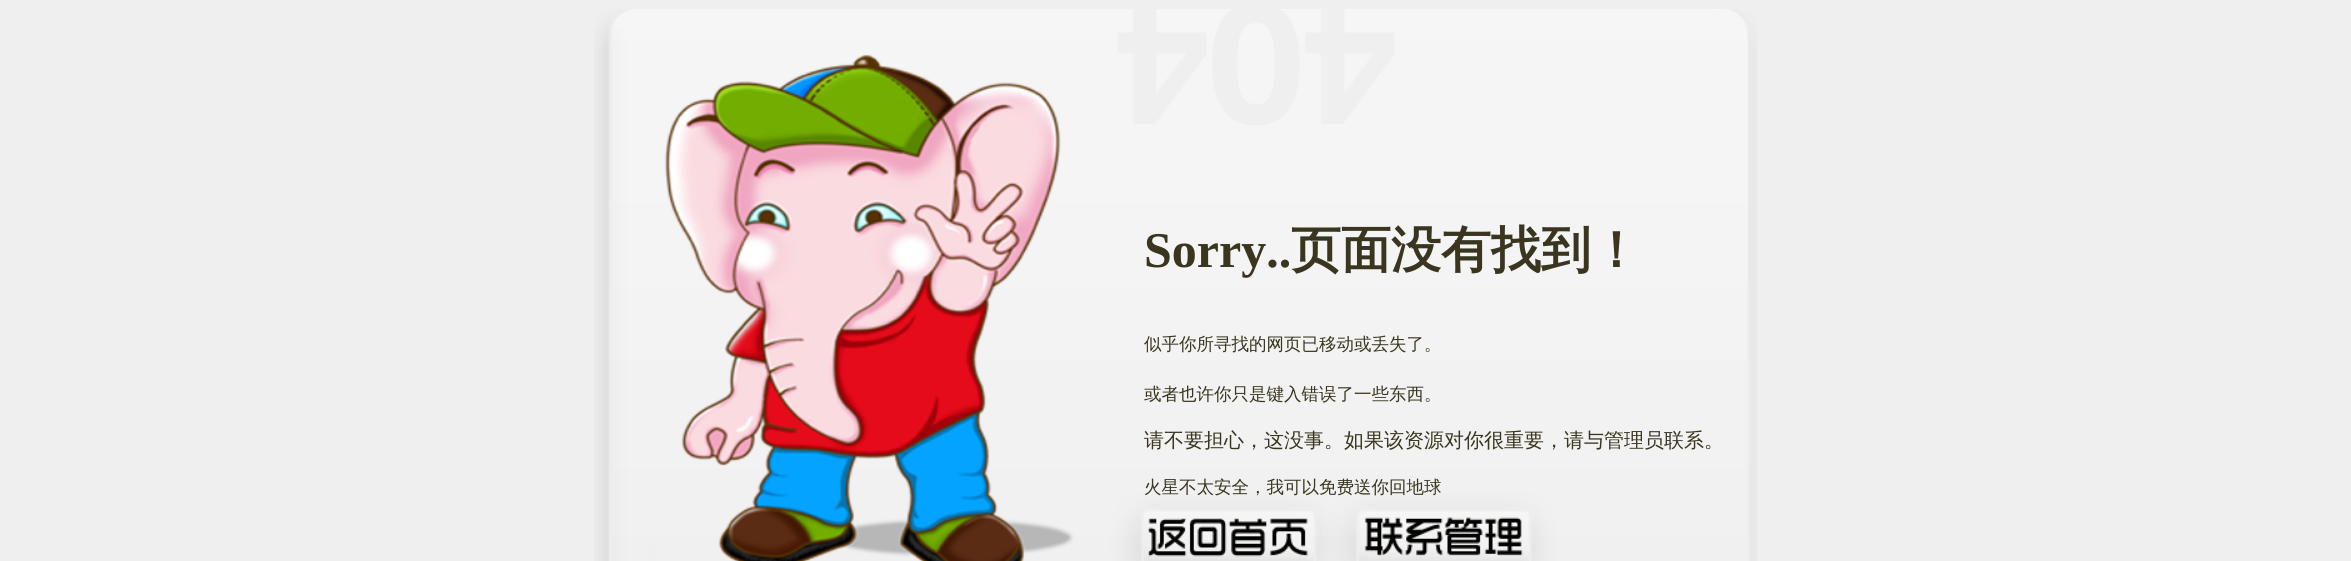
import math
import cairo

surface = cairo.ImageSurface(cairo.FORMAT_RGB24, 2351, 561)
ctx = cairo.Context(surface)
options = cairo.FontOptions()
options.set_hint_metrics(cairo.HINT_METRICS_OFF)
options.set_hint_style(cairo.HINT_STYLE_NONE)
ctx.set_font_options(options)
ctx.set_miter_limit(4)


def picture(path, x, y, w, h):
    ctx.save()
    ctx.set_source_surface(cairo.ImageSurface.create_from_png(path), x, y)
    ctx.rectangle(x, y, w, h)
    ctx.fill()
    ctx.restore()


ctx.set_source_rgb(0.937, 0.937, 0.937)
ctx.paint()
picture("img1.png", 594, 9, 1163, 552)
ctx.select_font_face("Liberation Serif", cairo.FONT_SLANT_NORMAL, cairo.FONT_WEIGHT_BOLD)
ctx.set_font_size(50)
ctx.set_source_rgb(0.224, 0.208, 0.118)
ctx.move_to(1144, 267)
ctx.show_text("Sorry..")
ctx.select_font_face("WenQuanYi Zen Hei", cairo.FONT_SLANT_NORMAL, cairo.FONT_WEIGHT_BOLD)
ctx.move_to(1291, 267)
ctx.show_text("页面没有找到！")
ctx.select_font_face("WenQuanYi Zen Hei Medium")
ctx.set_font_size(17.5)
ctx.move_to(1144, 350)
ctx.show_text("似乎你所寻找的网页已移动或丢失了。")
ctx.move_to(1144, 400)
ctx.show_text("或者也许你只是键入错误了一些东西。")
ctx.set_font_size(20)
ctx.move_to(1144, 447)
ctx.show_text("请不要担心，这没事。如果该资源对你很重要，请与管理员联系。")
ctx.set_font_size(17.5)
ctx.move_to(1144, 493)
ctx.show_text("火星不太安全，我可以免费送你回地球")
surface.write_to_png("page.png")
